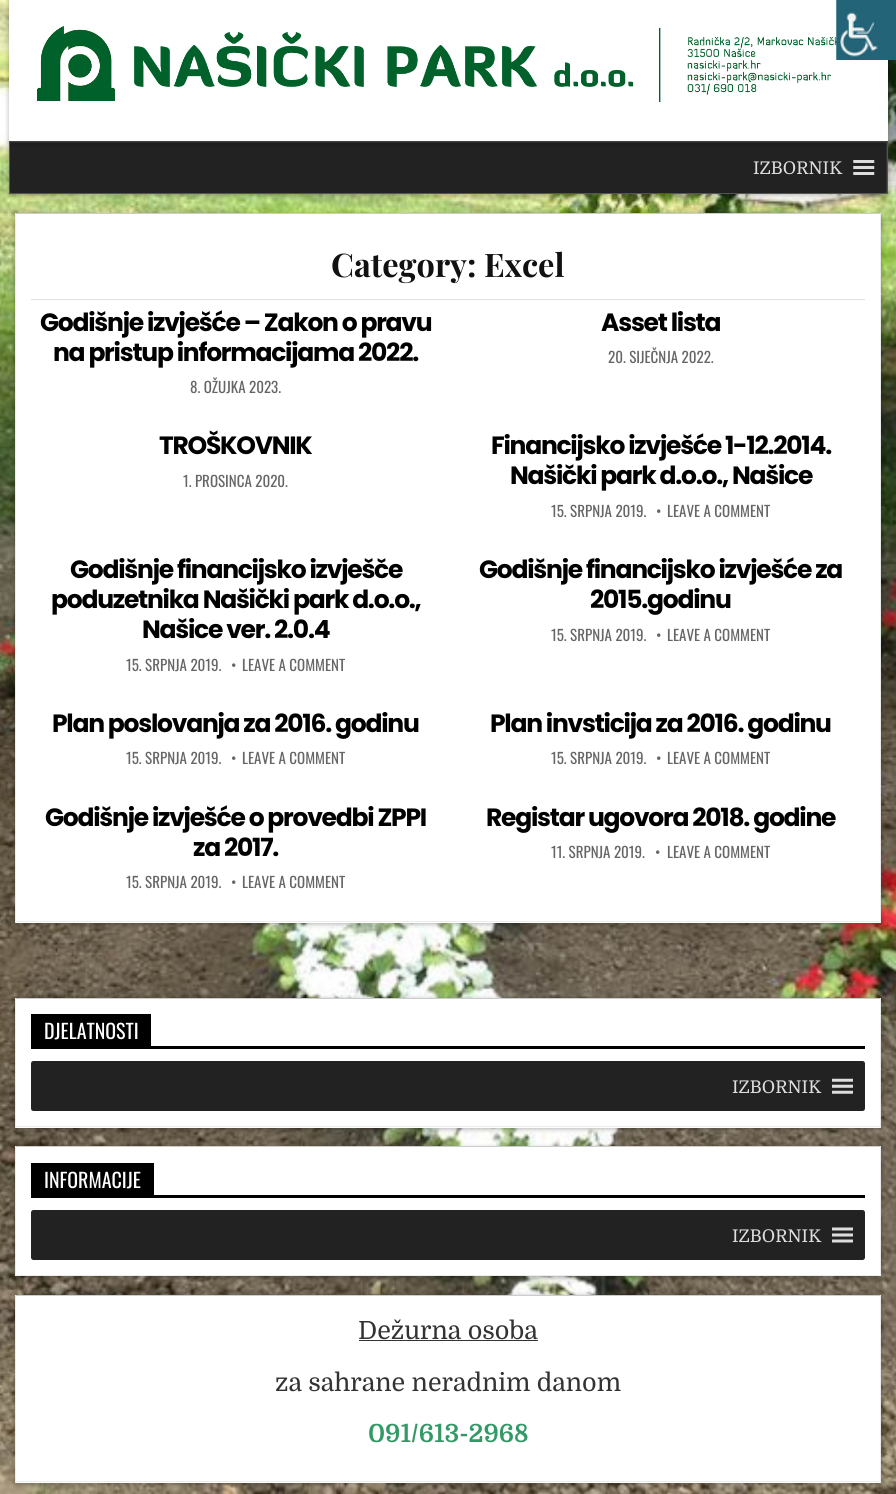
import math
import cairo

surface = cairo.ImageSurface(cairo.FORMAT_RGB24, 896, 1494)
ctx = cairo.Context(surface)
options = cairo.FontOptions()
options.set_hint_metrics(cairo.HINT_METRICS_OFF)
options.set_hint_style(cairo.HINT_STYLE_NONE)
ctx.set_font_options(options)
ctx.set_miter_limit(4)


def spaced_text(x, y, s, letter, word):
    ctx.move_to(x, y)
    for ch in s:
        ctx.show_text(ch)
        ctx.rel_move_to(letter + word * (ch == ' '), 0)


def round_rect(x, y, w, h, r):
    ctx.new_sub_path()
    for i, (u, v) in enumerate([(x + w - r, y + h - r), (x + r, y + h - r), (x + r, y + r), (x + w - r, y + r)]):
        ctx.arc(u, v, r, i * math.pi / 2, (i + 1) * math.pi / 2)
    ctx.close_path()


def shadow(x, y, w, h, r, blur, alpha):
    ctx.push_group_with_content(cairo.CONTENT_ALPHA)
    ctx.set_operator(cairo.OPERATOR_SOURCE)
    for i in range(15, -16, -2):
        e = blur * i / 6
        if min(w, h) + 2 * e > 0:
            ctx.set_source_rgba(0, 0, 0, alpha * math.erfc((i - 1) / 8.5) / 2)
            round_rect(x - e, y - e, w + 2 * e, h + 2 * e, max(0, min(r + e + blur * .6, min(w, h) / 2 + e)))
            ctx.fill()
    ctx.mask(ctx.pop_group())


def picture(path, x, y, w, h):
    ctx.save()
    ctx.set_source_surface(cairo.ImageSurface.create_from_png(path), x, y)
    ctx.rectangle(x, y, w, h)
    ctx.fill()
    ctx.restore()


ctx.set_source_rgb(1, 1, 1)
ctx.paint()
picture("img1.png", 0, 0, 896, 1494)
ctx.set_source_rgb(0, 0, 0)
shadow(9, 143, 879, 52, 0, 2.5, 0.3)
ctx.set_source_rgb(0.2, 0.2, 0.2)
ctx.rectangle(9.5, 141.5, 878, 52)
ctx.fill_preserve()
ctx.set_source_rgb(0.333, 0.333, 0.333)
ctx.set_line_width(1)
ctx.stroke()
ctx.set_source_rgb(0.133, 0.133, 0.133)
round_rect(10, 143, 876, 50, 2.5)
ctx.fill()
ctx.set_source_rgb(0, 0, 0)
shadow(9, 1, 879, 142, 0, 2.5, 0.3)
ctx.set_source_rgb(1, 1, 1)
ctx.rectangle(9, 0, 879, 141)
ctx.fill()
picture("img3.png", 37, 25, 800, 77)
picture("img2.png", 836, 0, 60, 60)
ctx.select_font_face("Domine")
ctx.set_font_size(17.5)
ctx.set_source_rgb(0.867, 0.867, 0.867)
ctx.move_to(753, 174)
ctx.show_text("IZBORNIK")
picture("img4.png", 853, 160, 22, 15)
ctx.set_source_rgb(0, 0, 0)
shadow(15, 214, 866, 710, 0, 2.5, 0.3)
ctx.set_source_rgb(1, 1, 1)
ctx.rectangle(16, 214, 864, 709)
ctx.fill()
ctx.set_source_rgb(0.8, 0.8, 0.8)
ctx.rectangle(15, 213, 866, 1)
ctx.fill()
ctx.set_source_rgb(0.925, 0.925, 0.925)
ctx.rectangle(880, 213, 1, 710)
ctx.fill()
ctx.rectangle(15, 921, 866, 1)
ctx.fill()
ctx.rectangle(15, 213, 1, 710)
ctx.fill()
ctx.set_source_rgb(0.875, 0.875, 0.875)
ctx.rectangle(31, 299, 834, 1)
ctx.fill()
ctx.select_font_face("Playfair Display", cairo.FONT_SLANT_NORMAL, cairo.FONT_WEIGHT_BOLD)
ctx.set_font_size(32.5)
ctx.set_source_rgb(0.067, 0.067, 0.067)
ctx.move_to(331, 277)
ctx.show_text("Category: Excel")
ctx.select_font_face("Poppins", cairo.FONT_SLANT_NORMAL, cairo.FONT_WEIGHT_BOLD)
ctx.set_font_size(25)
ctx.set_source_rgb(0, 0, 0)
spaced_text(40, 331, "Godišnje izvješće – Zakon o pravu", -1.25, 0)
spaced_text(53, 361, "na pristup informacijama 2022.", -1.25, 0)
ctx.select_font_face("Oswald")
ctx.set_font_size(15)
ctx.set_source_rgb(0.4, 0.4, 0.4)
ctx.move_to(190, 393)
ctx.show_text("8. OŽUJKA 2023.")
ctx.select_font_face("Poppins", cairo.FONT_SLANT_NORMAL, cairo.FONT_WEIGHT_BOLD)
ctx.set_font_size(25)
ctx.set_source_rgb(0, 0, 0)
spaced_text(601, 331, "Asset lista", -1.25, 0)
ctx.select_font_face("Oswald")
ctx.set_font_size(15)
ctx.set_source_rgb(0.4, 0.4, 0.4)
ctx.move_to(608, 363)
ctx.show_text("20. SIJEČNJA 2022.")
ctx.select_font_face("Poppins", cairo.FONT_SLANT_NORMAL, cairo.FONT_WEIGHT_BOLD)
ctx.set_font_size(25)
ctx.set_source_rgb(0, 0, 0)
spaced_text(159, 454, "TROŠKOVNIK", -1.25, 0)
ctx.select_font_face("Oswald")
ctx.set_font_size(15)
ctx.set_source_rgb(0.4, 0.4, 0.4)
ctx.move_to(183, 487)
ctx.show_text("1. PROSINCA 2020.")
ctx.select_font_face("Poppins", cairo.FONT_SLANT_NORMAL, cairo.FONT_WEIGHT_BOLD)
ctx.set_font_size(25)
ctx.set_source_rgb(0, 0, 0)
spaced_text(491, 454, "Financijsko izvješće 1-12.2014.", -1.25, 0)
spaced_text(510, 484, "Našički park d.o.o., Našice", -1.25, 0)
ctx.select_font_face("Oswald")
ctx.set_font_size(15)
ctx.set_source_rgb(0.4, 0.4, 0.4)
ctx.move_to(551, 517)
ctx.show_text("15. SRPNJA 2019.")
ctx.move_to(656, 517)
ctx.show_text("•")
ctx.move_to(667, 517)
ctx.show_text("LEAVE A COMMENT")
ctx.select_font_face("Poppins", cairo.FONT_SLANT_NORMAL, cairo.FONT_WEIGHT_BOLD)
ctx.set_font_size(25)
ctx.set_source_rgb(0, 0, 0)
spaced_text(70, 578, "Godišnje financijsko izvješče", -1.25, 0)
spaced_text(51, 608, "poduzetnika Našički park d.o.o.,", -1.25, 0)
spaced_text(142, 638, "Našice ver. 2.0.4", -1.25, 0)
ctx.select_font_face("Oswald")
ctx.set_font_size(15)
ctx.set_source_rgb(0.4, 0.4, 0.4)
ctx.move_to(126, 671)
ctx.show_text("15. SRPNJA 2019.")
ctx.move_to(231, 671)
ctx.show_text("•")
ctx.move_to(242, 671)
ctx.show_text("LEAVE A COMMENT")
ctx.select_font_face("Poppins", cairo.FONT_SLANT_NORMAL, cairo.FONT_WEIGHT_BOLD)
ctx.set_font_size(25)
ctx.set_source_rgb(0, 0, 0)
spaced_text(479, 578, "Godišnje financijsko izvješće za", -1.25, 0)
spaced_text(590, 608, "2015.godinu", -1.25, 0)
ctx.select_font_face("Oswald")
ctx.set_font_size(15)
ctx.set_source_rgb(0.4, 0.4, 0.4)
ctx.move_to(551, 641)
ctx.show_text("15. SRPNJA 2019.")
ctx.move_to(656, 641)
ctx.show_text("•")
ctx.move_to(667, 641)
ctx.show_text("LEAVE A COMMENT")
ctx.select_font_face("Poppins", cairo.FONT_SLANT_NORMAL, cairo.FONT_WEIGHT_BOLD)
ctx.set_font_size(25)
ctx.set_source_rgb(0, 0, 0)
spaced_text(52, 732, "Plan poslovanja za 2016. godinu", -1.25, 0)
ctx.select_font_face("Oswald")
ctx.set_font_size(15)
ctx.set_source_rgb(0.4, 0.4, 0.4)
ctx.move_to(126, 764)
ctx.show_text("15. SRPNJA 2019.")
ctx.move_to(231, 764)
ctx.show_text("•")
ctx.move_to(242, 764)
ctx.show_text("LEAVE A COMMENT")
ctx.select_font_face("Poppins", cairo.FONT_SLANT_NORMAL, cairo.FONT_WEIGHT_BOLD)
ctx.set_font_size(25)
ctx.set_source_rgb(0, 0, 0)
spaced_text(490, 732, "Plan invsticija za 2016. godinu", -1.25, 0)
ctx.select_font_face("Oswald")
ctx.set_font_size(15)
ctx.set_source_rgb(0.4, 0.4, 0.4)
ctx.move_to(551, 764)
ctx.show_text("15. SRPNJA 2019.")
ctx.move_to(656, 764)
ctx.show_text("•")
ctx.move_to(667, 764)
ctx.show_text("LEAVE A COMMENT")
ctx.select_font_face("Poppins", cairo.FONT_SLANT_NORMAL, cairo.FONT_WEIGHT_BOLD)
ctx.set_font_size(25)
ctx.set_source_rgb(0, 0, 0)
spaced_text(45, 826, "Godišnje izvješće o provedbi ZPPI", -1.25, 0)
spaced_text(193, 856, "za 2017.", -1.25, 0)
ctx.select_font_face("Oswald")
ctx.set_font_size(15)
ctx.set_source_rgb(0.4, 0.4, 0.4)
ctx.move_to(126, 888)
ctx.show_text("15. SRPNJA 2019.")
ctx.move_to(231, 888)
ctx.show_text("•")
ctx.move_to(242, 888)
ctx.show_text("LEAVE A COMMENT")
ctx.select_font_face("Poppins", cairo.FONT_SLANT_NORMAL, cairo.FONT_WEIGHT_BOLD)
ctx.set_font_size(25)
ctx.set_source_rgb(0, 0, 0)
spaced_text(486, 826, "Registar ugovora 2018. godine", -1.25, 0)
ctx.select_font_face("Oswald")
ctx.set_font_size(15)
ctx.set_source_rgb(0.4, 0.4, 0.4)
ctx.move_to(551, 858)
ctx.show_text("11. SRPNJA 2019.")
ctx.move_to(655, 858)
ctx.show_text("•")
ctx.move_to(667, 858)
ctx.show_text("LEAVE A COMMENT")
ctx.set_source_rgb(0, 0, 0)
shadow(15, 999, 866, 130, 0, 2.5, 0.3)
ctx.set_source_rgb(1, 1, 1)
ctx.rectangle(16, 999, 864, 129)
ctx.fill()
ctx.set_source_rgb(0.8, 0.8, 0.8)
ctx.rectangle(15, 998, 866, 1)
ctx.fill()
ctx.set_source_rgb(0.925, 0.925, 0.925)
ctx.rectangle(880, 998, 1, 130)
ctx.fill()
ctx.rectangle(15, 1126, 866, 1)
ctx.fill()
ctx.rectangle(15, 998, 1, 130)
ctx.fill()
ctx.set_source_rgb(0, 0, 0)
ctx.rectangle(31, 1046, 834, 3)
ctx.fill()
ctx.rectangle(31, 1014, 120, 32)
ctx.fill()
ctx.set_font_size(20)
ctx.set_source_rgb(1, 1, 1)
ctx.move_to(44, 1039)
ctx.show_text("DJELATNOSTI")
ctx.set_source_rgb(0.133, 0.133, 0.133)
round_rect(31, 1061, 834, 50, 2.5)
ctx.fill()
ctx.select_font_face("Domine")
ctx.set_font_size(17.5)
ctx.set_source_rgb(0.867, 0.867, 0.867)
ctx.move_to(732, 1093)
ctx.show_text("IZBORNIK")
picture("img5.png", 832, 1078, 21, 16)
ctx.set_source_rgb(0, 0, 0)
shadow(15, 1148, 866, 130, 0, 2.5, 0.3)
ctx.set_source_rgb(1, 1, 1)
ctx.rectangle(16, 1147, 864, 128)
ctx.fill()
ctx.set_source_rgb(0.8, 0.8, 0.8)
ctx.rectangle(15, 1146, 866, 1)
ctx.fill()
ctx.set_source_rgb(0.925, 0.925, 0.925)
ctx.rectangle(880, 1146, 1, 130)
ctx.fill()
ctx.rectangle(15, 1275, 866, 1)
ctx.fill()
ctx.rectangle(15, 1146, 1, 130)
ctx.fill()
ctx.set_source_rgb(0, 0, 0)
ctx.rectangle(31, 1195, 834, 3)
ctx.fill()
ctx.rectangle(31, 1163, 123, 32)
ctx.fill()
ctx.select_font_face("Oswald")
ctx.set_font_size(20)
ctx.set_source_rgb(1, 1, 1)
ctx.move_to(44, 1188)
ctx.show_text("INFORMACIJE")
ctx.set_source_rgb(0.133, 0.133, 0.133)
round_rect(31, 1210, 834, 50, 2.5)
ctx.fill()
ctx.select_font_face("Domine")
ctx.set_font_size(17.5)
ctx.set_source_rgb(0.867, 0.867, 0.867)
ctx.move_to(732, 1242)
ctx.show_text("IZBORNIK")
picture("img6.png", 832, 1227, 21, 16)
ctx.set_source_rgb(0, 0, 0)
shadow(15, 1296, 866, 188, 0, 2.5, 0.3)
ctx.set_source_rgb(1, 1, 1)
ctx.rectangle(16, 1296, 864, 187)
ctx.fill()
ctx.set_source_rgb(0.8, 0.8, 0.8)
ctx.rectangle(15, 1295, 866, 1)
ctx.fill()
ctx.set_source_rgb(0.925, 0.925, 0.925)
ctx.rectangle(880, 1295, 1, 188)
ctx.fill()
ctx.rectangle(15, 1481, 866, 1)
ctx.fill()
ctx.rectangle(15, 1295, 1, 188)
ctx.fill()
ctx.set_font_size(25)
ctx.set_source_rgb(0.2, 0.2, 0.2)
ctx.move_to(358, 1339)
ctx.show_text("Dežurna osoba")
ctx.rectangle(359, 1340, 179, 1)
ctx.fill()
ctx.move_to(275, 1391)
ctx.show_text("za sahrane neradnim danom")
ctx.select_font_face("Domine", cairo.FONT_SLANT_NORMAL, cairo.FONT_WEIGHT_BOLD)
ctx.set_source_rgb(0.2, 0.6, 0.4)
ctx.move_to(368, 1442)
ctx.show_text("091/613-2968")
surface.write_to_png("page.png")
